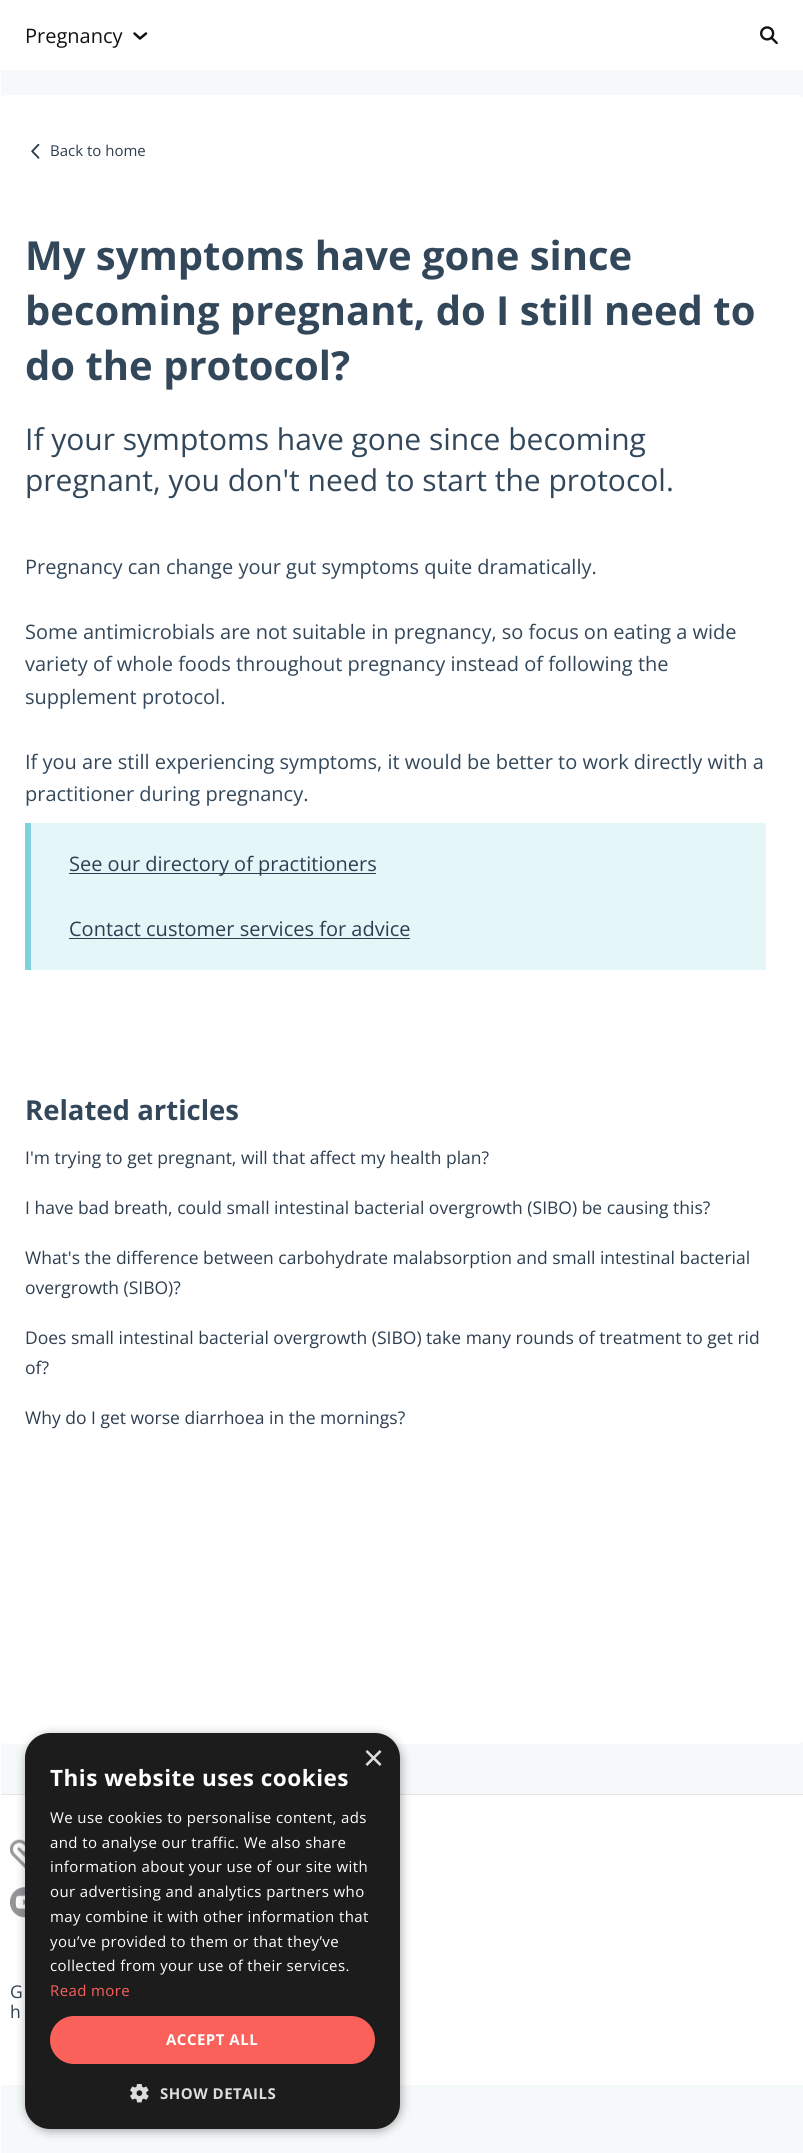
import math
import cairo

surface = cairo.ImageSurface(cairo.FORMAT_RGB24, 803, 2153)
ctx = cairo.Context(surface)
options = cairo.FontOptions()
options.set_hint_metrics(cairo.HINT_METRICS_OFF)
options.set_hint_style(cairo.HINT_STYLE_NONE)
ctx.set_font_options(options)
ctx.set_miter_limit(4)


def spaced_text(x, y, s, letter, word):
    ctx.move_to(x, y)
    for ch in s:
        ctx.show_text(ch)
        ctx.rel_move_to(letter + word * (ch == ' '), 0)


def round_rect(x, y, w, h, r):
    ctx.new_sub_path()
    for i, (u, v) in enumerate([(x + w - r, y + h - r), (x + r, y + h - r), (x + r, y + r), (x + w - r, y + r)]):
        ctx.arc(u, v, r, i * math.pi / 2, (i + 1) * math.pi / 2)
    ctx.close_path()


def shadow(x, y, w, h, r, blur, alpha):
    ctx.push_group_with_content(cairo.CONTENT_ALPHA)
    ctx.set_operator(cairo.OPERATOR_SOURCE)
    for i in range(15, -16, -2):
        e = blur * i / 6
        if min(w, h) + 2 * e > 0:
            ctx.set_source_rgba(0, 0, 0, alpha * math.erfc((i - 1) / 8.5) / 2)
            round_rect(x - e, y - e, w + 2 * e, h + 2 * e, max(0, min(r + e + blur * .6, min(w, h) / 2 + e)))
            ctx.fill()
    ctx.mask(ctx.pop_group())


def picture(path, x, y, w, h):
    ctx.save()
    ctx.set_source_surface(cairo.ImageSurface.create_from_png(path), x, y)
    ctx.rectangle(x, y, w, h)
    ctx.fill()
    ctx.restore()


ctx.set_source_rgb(0.961, 0.973, 0.98)
ctx.paint()
ctx.set_source_rgb(1, 1, 1)
round_rect(0, 95, 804, 1649, 6)
ctx.fill()
ctx.set_source_rgb(0.902, 0.902, 0.902)
ctx.rectangle(0, 1794, 803, 1)
ctx.fill()
ctx.set_source_rgb(1, 1, 1)
ctx.rectangle(0, 0, 1, 2153)
ctx.fill()
ctx.set_source_rgb(0.918, 0.941, 0.965)
ctx.rectangle(0, 0, 1, 1)
ctx.fill()
ctx.set_source_rgb(1, 1, 1)
ctx.rectangle(1, 0, 802, 70)
ctx.fill()
ctx.select_font_face("Open Sans")
ctx.set_font_size(20)
ctx.set_source_rgb(0.067, 0.067, 0.067)
ctx.move_to(25, 43)
ctx.show_text("Pregnancy")
ctx.new_path()
ctx.move_to(146, 33.5)
ctx.line_to(140, 38.5)
ctx.line_to(134.5, 33.5)
ctx.set_line_width(2.5)
ctx.set_line_cap(cairo.LINE_CAP_ROUND)
ctx.set_line_join(cairo.LINE_JOIN_ROUND)
ctx.stroke()
picture("img1.png", 760, 26, 18, 19)
picture("img2.png", 31, 144, 9, 15)
ctx.set_font_size(15)
ctx.set_source_rgb(0.176, 0.243, 0.314)
ctx.move_to(50, 156)
ctx.show_text("Back to home")
ctx.select_font_face("Open Sans", cairo.FONT_SLANT_NORMAL, cairo.FONT_WEIGHT_BOLD)
ctx.set_font_size(40)
ctx.set_source_rgb(0.2, 0.278, 0.357)
ctx.move_to(25, 270)
ctx.show_text("My symptoms have gone since")
ctx.move_to(25, 325)
ctx.show_text("becoming pregnant, do I still need to")
ctx.move_to(25, 380)
ctx.show_text("do the protocol?")
ctx.select_font_face("Open Sans")
ctx.set_font_size(30)
ctx.move_to(25, 450)
ctx.show_text("If your symptoms have gone since becoming")
ctx.move_to(25, 491)
ctx.show_text("pregnant, you don't need to start the protocol.")
ctx.set_font_size(20)
ctx.move_to(25, 574)
ctx.show_text("Pregnancy can change your gut symptoms quite dramatically.")
ctx.move_to(25, 639)
ctx.show_text("Some antimicrobials are not suitable in pregnancy, so focus on eating a wide")
ctx.move_to(25, 671)
ctx.show_text("variety of whole foods throughout pregnancy instead of following the")
ctx.move_to(25, 704)
ctx.show_text("supplement protocol.")
ctx.move_to(25, 769)
ctx.show_text("If you are still experiencing symptoms, it would be better to work directly with a")
ctx.move_to(25, 801)
ctx.show_text("practitioner during pregnancy.")
ctx.set_source_rgb(0.898, 0.961, 0.973)
ctx.rectangle(31, 823, 735, 147)
ctx.fill()
ctx.set_source_rgb(0.498, 0.82, 0.871)
ctx.rectangle(25, 823, 6, 147)
ctx.fill()
ctx.set_source_rgb(0.176, 0.243, 0.314)
ctx.rectangle(69, 873, 307, 1)
ctx.fill()
ctx.move_to(69, 871)
ctx.show_text("See our directory of practitioners")
ctx.move_to(69, 936)
ctx.show_text("Contact customer services for advice")
ctx.rectangle(69, 938, 341, 1)
ctx.fill()
ctx.select_font_face("Open Sans", cairo.FONT_SLANT_NORMAL, cairo.FONT_WEIGHT_BOLD)
ctx.set_font_size(27.5)
ctx.set_source_rgb(0.2, 0.278, 0.357)
ctx.move_to(25, 1120)
ctx.show_text("Related articles")
ctx.select_font_face("Open Sans")
ctx.set_font_size(17.5)
ctx.set_source_rgb(0.176, 0.243, 0.314)
ctx.move_to(25, 1164)
ctx.show_text("I'm trying to get pregnant, will that affect my health plan?")
ctx.move_to(25, 1214)
ctx.show_text("I have bad breath, could small intestinal bacterial overgrowth (SIBO) be causing this?")
ctx.move_to(25, 1264)
ctx.show_text("What's the difference between carbohydrate malabsorption and small intestinal bacterial")
ctx.move_to(25, 1294)
ctx.show_text("overgrowth (SIBO)?")
ctx.move_to(25, 1344)
ctx.show_text("Does small intestinal bacterial overgrowth (SIBO) take many rounds of treatment to get rid")
ctx.move_to(25, 1374)
ctx.show_text("of?")
ctx.move_to(25, 1424)
ctx.show_text("Why do I get worse diarrhoea in the mornings?")
ctx.set_source_rgb(1, 1, 1)
ctx.rectangle(1, 1795, 802, 290)
ctx.fill()
picture("img3.png", 10, 1839, 15, 30)
picture("img4.png", 10, 1887, 15, 31)
ctx.set_source_rgb(0.176, 0.243, 0.314)
ctx.move_to(10, 1998)
ctx.show_text("G")
ctx.move_to(10, 2018)
ctx.show_text("h")
ctx.set_source_rgb(0, 0, 0)
shadow(26, 1735, 375, 396, 25, 5, 0.35)
ctx.set_source_rgb(0.11, 0.11, 0.11)
round_rect(25, 1733, 375, 396, 25)
ctx.fill()
ctx.select_font_face("Liberation Sans")
ctx.set_font_size(36)
ctx.set_source_rgb(0.867, 0.867, 0.867)
ctx.move_to(363, 1770)
ctx.show_text("×")
ctx.select_font_face("Open Sans", cairo.FONT_SLANT_NORMAL, cairo.FONT_WEIGHT_BOLD)
ctx.set_font_size(22.5)
ctx.set_source_rgb(1, 1, 1)
spaced_text(50, 1786, "This website uses cookies", 0.5, 0)
ctx.select_font_face("Open Sans")
ctx.set_font_size(15)
spaced_text(50, 1823, "We use cookies to personalise content, ads", 0.4, 0)
spaced_text(50, 1848, "and to analyse our traffic. We also share", 0.4, 0)
spaced_text(50, 1872, "information about your use of our site with", 0.4, 0)
spaced_text(50, 1897, "our advertising and analytics partners who", 0.4, 0)
spaced_text(50, 1922, "may combine it with other information that", 0.4, 0)
spaced_text(50, 1947, "you’ve provided to them or that they’ve", 0.4, 0)
spaced_text(50, 1971, "collected from your use of their services.", 0.4, 0)
ctx.set_source_rgb(0.976, 0.38, 0.353)
spaced_text(50, 1996, "Read more", 0.4, 0)
round_rect(50, 2016, 325, 48, 24)
ctx.fill()
ctx.select_font_face("Open Sans", cairo.FONT_SLANT_NORMAL, cairo.FONT_WEIGHT_BOLD)
ctx.set_source_rgb(1, 1, 1)
spaced_text(166, 2045, "ACCEPT ALL", 0.5, 0)
picture("img5.png", 130, 2084, 19, 19)
ctx.set_source_rgb(0.867, 0.867, 0.867)
spaced_text(160, 2099, "SHOW DETAILS", 0.5, 0)
surface.write_to_png("page.png")
